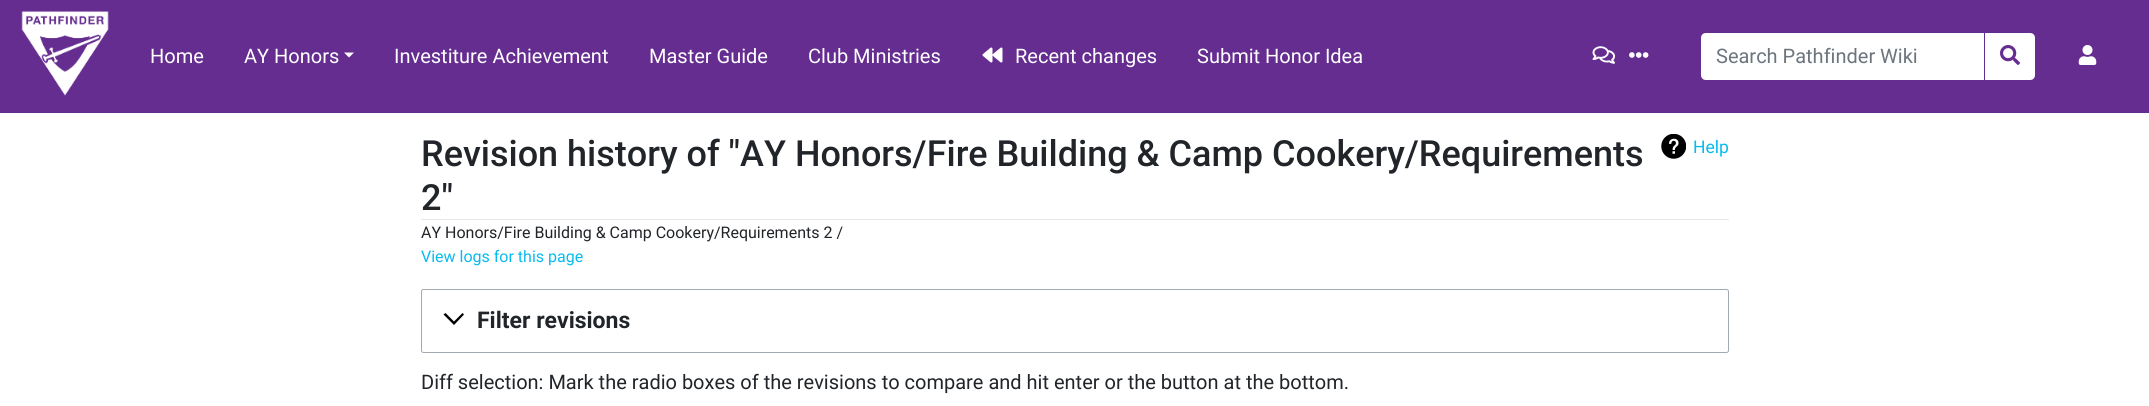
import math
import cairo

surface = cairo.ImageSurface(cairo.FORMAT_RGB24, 2149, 406)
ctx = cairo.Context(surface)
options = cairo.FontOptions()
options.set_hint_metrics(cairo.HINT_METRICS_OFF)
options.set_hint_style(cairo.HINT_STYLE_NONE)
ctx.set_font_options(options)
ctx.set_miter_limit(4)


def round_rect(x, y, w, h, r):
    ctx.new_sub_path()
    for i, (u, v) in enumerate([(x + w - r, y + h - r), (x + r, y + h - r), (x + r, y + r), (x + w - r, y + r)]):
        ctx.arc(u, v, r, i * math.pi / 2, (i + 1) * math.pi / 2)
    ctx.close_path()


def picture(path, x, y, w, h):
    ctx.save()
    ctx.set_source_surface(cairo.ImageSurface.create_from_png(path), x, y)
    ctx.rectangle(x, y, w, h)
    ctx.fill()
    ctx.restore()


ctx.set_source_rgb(1, 1, 1)
ctx.paint()
ctx.set_source_rgb(0.4, 0.176, 0.569)
ctx.rectangle(0, 0, 2149, 113)
ctx.fill()
picture("img1.png", 21, 11, 88, 85)
ctx.select_font_face("Roboto")
ctx.set_font_size(20)
ctx.set_source_rgb(1, 1, 1)
ctx.move_to(150, 63)
ctx.show_text("Home")
ctx.move_to(244, 63)
ctx.show_text("AY Honors")
ctx.new_path()
ctx.move_to(344, 52.5)
ctx.line_to(354, 52.5)
ctx.line_to(349, 57.5)
ctx.close_path()
ctx.fill()
ctx.move_to(394, 63)
ctx.show_text("Investiture Achievement")
ctx.move_to(649, 63)
ctx.show_text("Master Guide")
ctx.move_to(808, 63)
ctx.show_text("Club Ministries")
picture("img2.png", 982, 47, 21, 16)
ctx.move_to(1015, 63)
ctx.show_text("Recent changes")
ctx.move_to(1197, 63)
ctx.show_text("Submit Honor Idea")
picture("img3.png", 1592, 46, 23, 18)
picture("img4.png", 1629, 52, 20, 6)
ctx.new_path()
ctx.move_to(1706, 33)
ctx.line_to(1985, 33)
ctx.line_to(1985, 80)
ctx.line_to(1706, 80)
ctx.curve_to(1703, 80, 1701, 78, 1701, 75)
ctx.line_to(1701, 38)
ctx.curve_to(1701, 35, 1703, 33, 1706, 33)
ctx.close_path()
ctx.fill()
ctx.set_source_rgb(0.424, 0.459, 0.49)
ctx.move_to(1716, 63)
ctx.show_text("Search Pathfinder Wiki")
ctx.set_source_rgb(1, 1, 1)
ctx.new_path()
ctx.move_to(1984, 33)
ctx.line_to(2030, 33)
ctx.curve_to(2033, 33, 2035, 35, 2035, 38)
ctx.line_to(2035, 75)
ctx.curve_to(2035, 78, 2033, 80, 2030, 80)
ctx.line_to(1984, 80)
ctx.close_path()
ctx.fill()
ctx.set_source_rgb(0.4, 0.176, 0.569)
ctx.rectangle(1984, 33, 1, 47)
ctx.fill()
picture("img5.png", 2000, 45, 20, 20)
picture("img6.png", 2078, 45, 19, 20)
ctx.set_source_rgb(0.902, 0.902, 0.902)
ctx.rectangle(421, 219, 1308, 1)
ctx.fill()
ctx.select_font_face("Roboto Medium")
ctx.set_font_size(36)
ctx.set_source_rgb(0.129, 0.145, 0.161)
ctx.move_to(421, 166)
ctx.show_text("Revision history of \"AY Honors/Fire Building & Camp Cookery/Requirements")
ctx.move_to(421, 210)
ctx.show_text("2\"")
ctx.select_font_face("Roboto")
ctx.set_font_size(16)
ctx.move_to(421, 238)
ctx.show_text("AY Honors/Fire Building & Camp Cookery/Requirements 2 /")
ctx.set_source_rgb(0.031, 0.733, 0.933)
ctx.move_to(421, 262)
ctx.show_text("View logs for this page")
picture("img7.png", 1661, 134, 25, 25)
ctx.set_font_size(17.5)
ctx.move_to(1693, 153)
ctx.show_text("Help")
round_rect(421.5, 289.5, 1307, 63, 2)
ctx.set_source_rgb(0.635, 0.663, 0.694)
ctx.set_line_width(1)
ctx.stroke()
ctx.set_source_rgb(0, 0, 0)
ctx.new_path()
ctx.move_to(462.5, 313)
ctx.line_to(454, 321.5)
ctx.line_to(445.5, 313)
ctx.line_to(443.5, 314.5)
ctx.line_to(454, 325)
ctx.line_to(464, 314.5)
ctx.close_path()
ctx.fill()
ctx.select_font_face("Roboto", cairo.FONT_SLANT_NORMAL, cairo.FONT_WEIGHT_BOLD)
ctx.set_font_size(23)
ctx.set_source_rgb(0.129, 0.145, 0.161)
ctx.move_to(477, 328)
ctx.show_text("Filter revisions")
ctx.select_font_face("Roboto")
ctx.set_font_size(20)
ctx.move_to(421, 389)
ctx.show_text("Diff selection: Mark the radio boxes of the revisions to compare and hit enter or the button at the bottom.")
surface.write_to_png("page.png")
